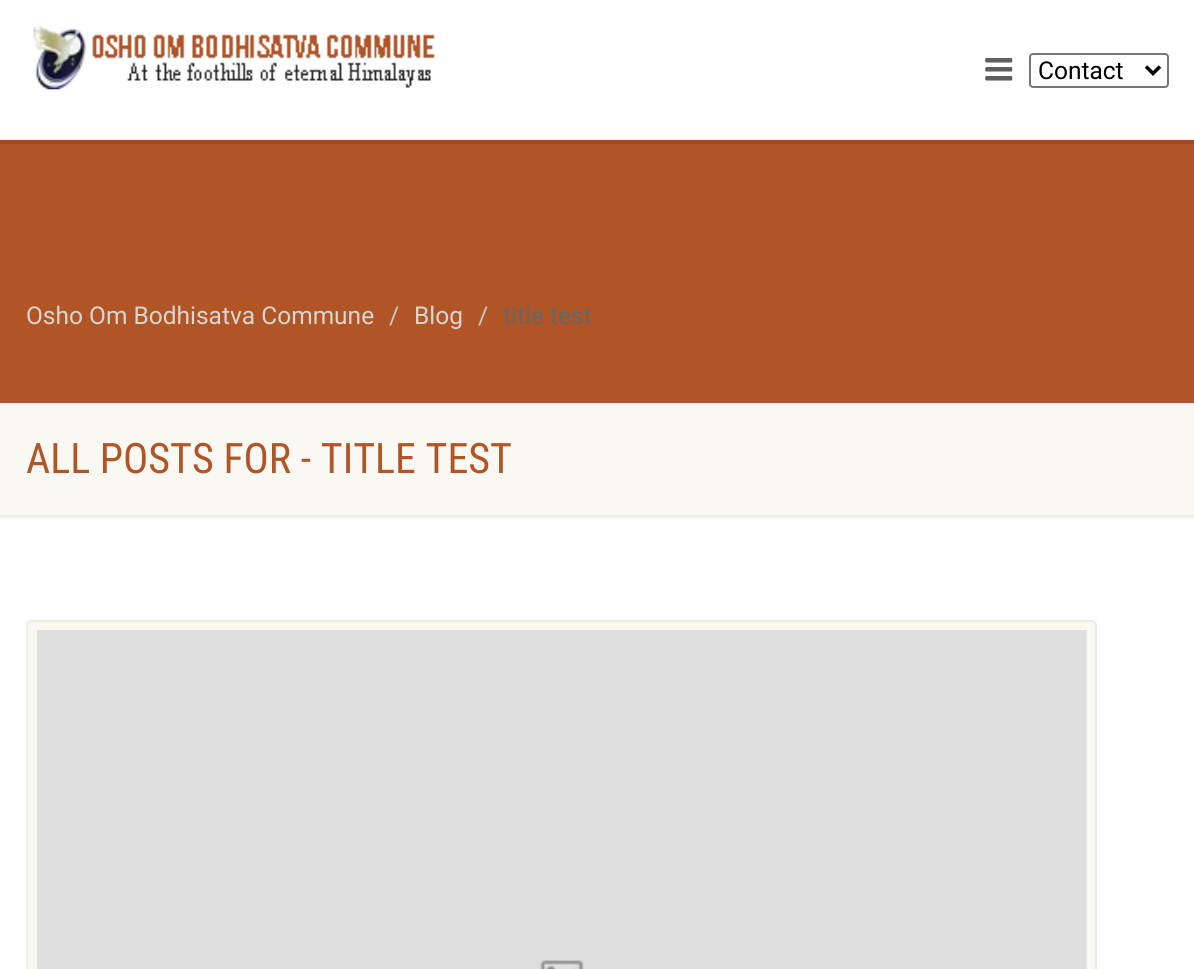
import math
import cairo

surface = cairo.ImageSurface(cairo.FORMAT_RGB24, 1194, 969)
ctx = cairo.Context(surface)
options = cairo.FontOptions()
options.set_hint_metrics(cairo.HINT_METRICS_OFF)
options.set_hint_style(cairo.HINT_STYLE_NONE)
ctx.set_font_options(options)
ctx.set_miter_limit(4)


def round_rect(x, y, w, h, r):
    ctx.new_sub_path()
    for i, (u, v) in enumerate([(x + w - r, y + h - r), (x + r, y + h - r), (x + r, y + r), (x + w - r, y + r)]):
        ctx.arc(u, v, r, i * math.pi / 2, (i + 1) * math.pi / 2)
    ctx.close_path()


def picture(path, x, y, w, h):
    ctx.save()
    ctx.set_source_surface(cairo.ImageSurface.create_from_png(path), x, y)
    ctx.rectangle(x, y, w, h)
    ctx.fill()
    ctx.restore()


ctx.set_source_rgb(1, 1, 1)
ctx.paint()
ctx.set_source_rgb(0.624, 0.302, 0.133)
ctx.rectangle(0, 140, 1194, 4)
ctx.fill()
picture("img1.png", 32, 26, 403, 64)
picture("img2.png", 985, 58, 28, 23)
round_rect(1030, 54, 138, 33, 3)
ctx.set_source_rgb(0.463, 0.463, 0.463)
ctx.stroke()
ctx.new_path()
ctx.move_to(1146, 66.5)
ctx.line_to(1153, 73.5)
ctx.line_to(1160, 66.5)
ctx.set_source_rgb(0, 0, 0)
ctx.set_line_width(3.5)
ctx.stroke()
ctx.select_font_face("Roboto")
ctx.set_font_size(24.5)
ctx.move_to(1038, 79)
ctx.show_text("Contact")
ctx.set_source_rgb(0.694, 0.333, 0.149)
ctx.rectangle(0, 144, 1194, 259)
ctx.fill()
ctx.set_source_rgb(0.847, 0.839, 0.82)
ctx.move_to(26, 324)
ctx.show_text("Osho Om Bodhisatva Commune")
ctx.set_source_rgb(0.8, 0.8, 0.8)
ctx.move_to(389, 324)
ctx.show_text("/")
ctx.set_source_rgb(0.847, 0.839, 0.82)
ctx.move_to(414, 324)
ctx.show_text("Blog")
ctx.set_source_rgb(0.8, 0.8, 0.8)
ctx.move_to(478, 324)
ctx.show_text("/")
ctx.set_source_rgb(0.4, 0.4, 0.4)
ctx.move_to(503, 324)
ctx.show_text("title test")
ctx.set_source_rgb(0.929, 0.929, 0.929)
ctx.rectangle(0, 515, 1194, 3)
ctx.fill()
ctx.set_source_rgb(0.973, 0.969, 0.953)
ctx.rectangle(0, 403, 1194, 112)
ctx.fill()
ctx.select_font_face("Roboto Condensed")
ctx.set_font_size(42)
ctx.set_source_rgb(0.694, 0.333, 0.149)
ctx.move_to(26, 473)
ctx.show_text("ALL POSTS FOR - TITLE TEST")
ctx.set_source_rgb(0.973, 0.969, 0.953)
round_rect(27, 621, 1069, 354, 4)
ctx.fill_preserve()
ctx.set_source_rgb(0.925, 0.918, 0.894)
ctx.set_line_width(2)
ctx.stroke()
picture("img3.png", 37, 630, 1050, 339)
surface.write_to_png("page.png")
